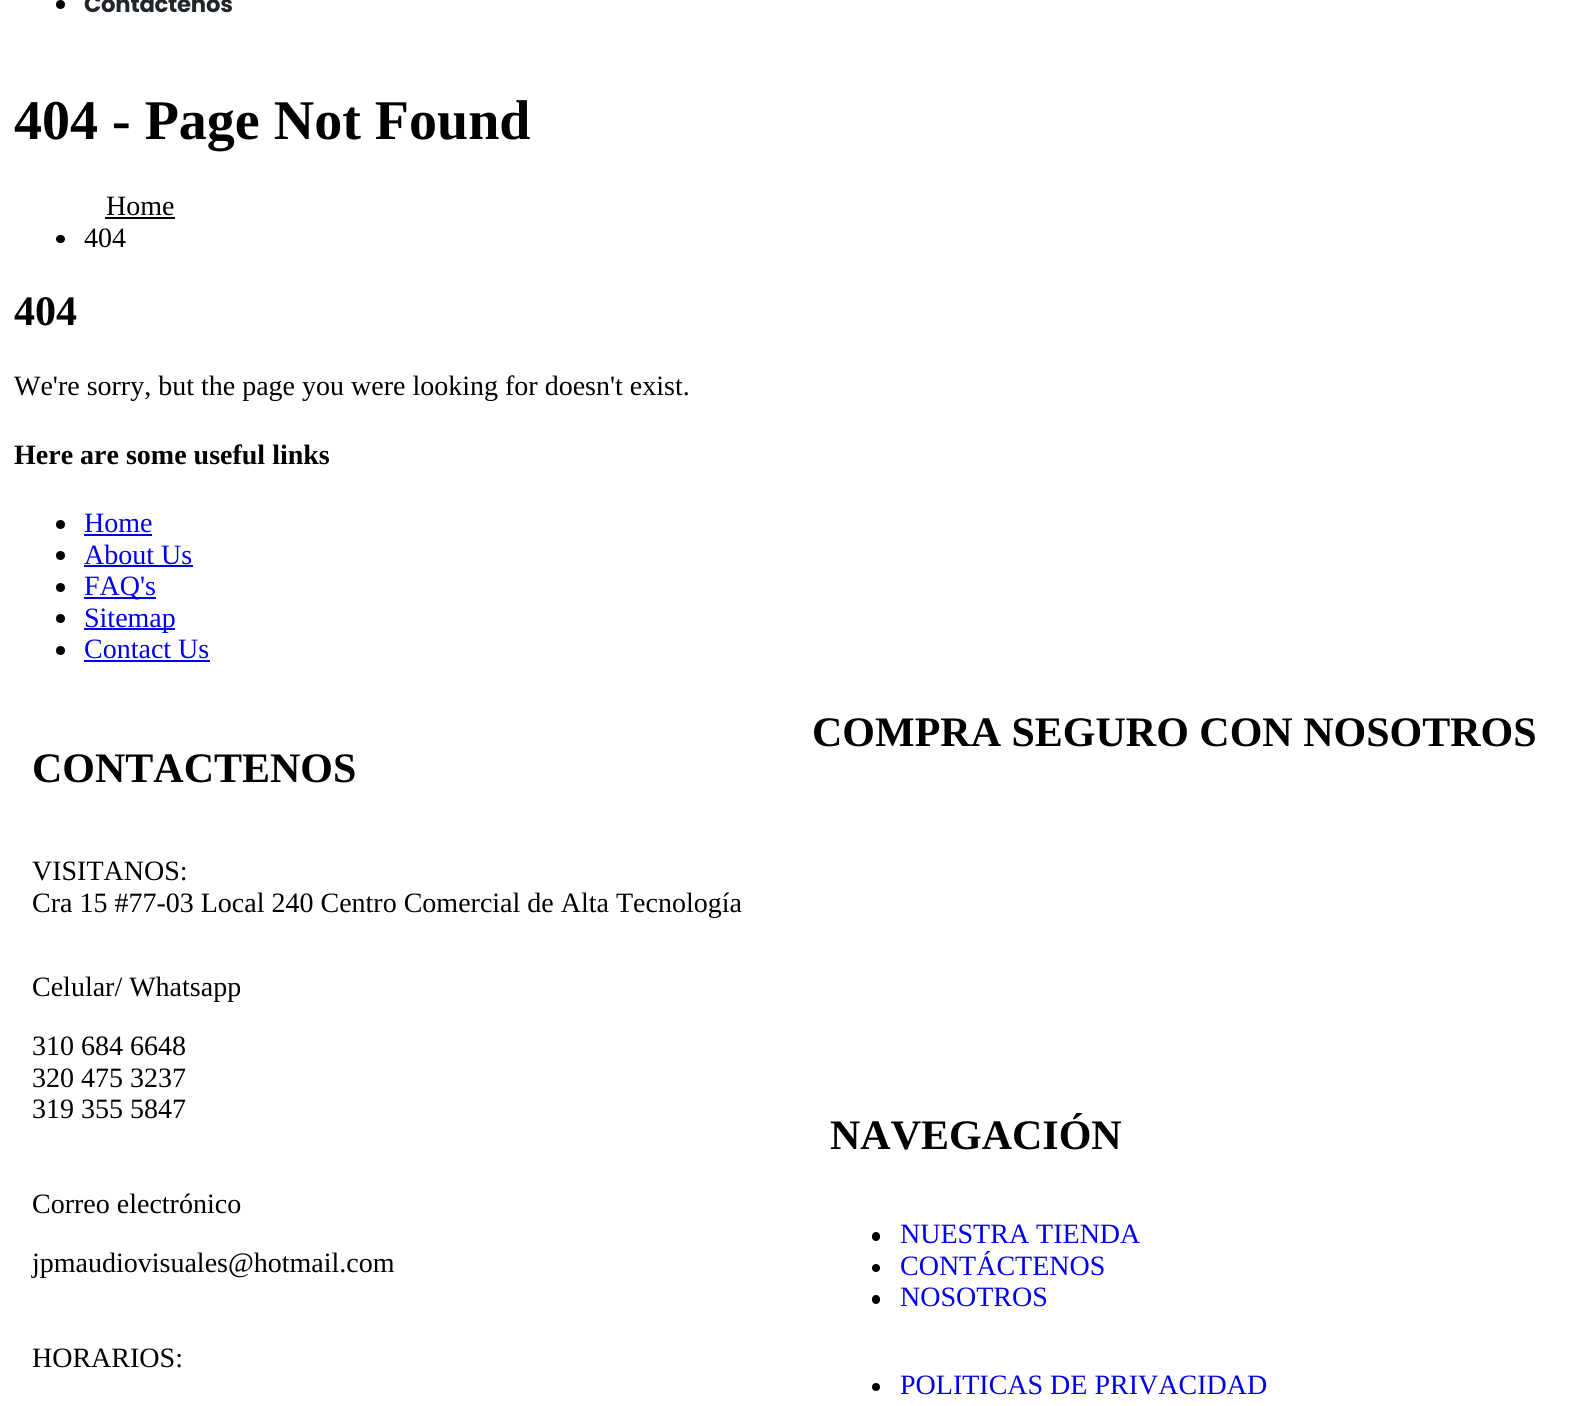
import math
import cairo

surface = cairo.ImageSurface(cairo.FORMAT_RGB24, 1588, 1406)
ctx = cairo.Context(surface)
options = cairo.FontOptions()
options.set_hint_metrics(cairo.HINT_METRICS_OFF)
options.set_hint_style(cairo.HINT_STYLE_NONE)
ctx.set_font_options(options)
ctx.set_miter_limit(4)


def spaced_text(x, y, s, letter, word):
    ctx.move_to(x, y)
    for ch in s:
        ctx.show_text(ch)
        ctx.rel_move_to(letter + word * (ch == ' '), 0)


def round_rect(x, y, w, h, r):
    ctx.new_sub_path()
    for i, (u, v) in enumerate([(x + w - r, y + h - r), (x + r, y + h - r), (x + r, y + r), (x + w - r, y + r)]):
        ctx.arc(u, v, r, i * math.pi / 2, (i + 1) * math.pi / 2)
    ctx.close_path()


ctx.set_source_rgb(1, 1, 1)
ctx.paint()
ctx.set_source_rgb(0, 0, 0)
ctx.arc(60.5, 4.5, 4.5, 0, 2 * math.pi)
ctx.fill()
ctx.select_font_face("Poppins", cairo.FONT_SLANT_NORMAL, cairo.FONT_WEIGHT_BOLD)
ctx.set_font_size(22.75)
ctx.set_source_rgb(0.133, 0.145, 0.161)
spaced_text(84, 12, "Contáctenos", -0.25, 0)
ctx.select_font_face("Liberation Serif", cairo.FONT_SLANT_NORMAL, cairo.FONT_WEIGHT_BOLD)
ctx.set_font_size(56)
ctx.set_source_rgb(0, 0, 0)
ctx.move_to(14, 139)
ctx.show_text("404 - Page Not Found")
ctx.select_font_face("Liberation Serif")
ctx.set_font_size(28)
ctx.move_to(106, 215)
ctx.show_text("Home")
ctx.rectangle(105, 217, 70, 2)
ctx.fill()
round_rect(56, 235, 9, 8, 4)
ctx.fill()
ctx.move_to(84, 247)
ctx.show_text("404")
ctx.select_font_face("Liberation Serif", cairo.FONT_SLANT_NORMAL, cairo.FONT_WEIGHT_BOLD)
ctx.set_font_size(42)
ctx.move_to(14, 325)
ctx.show_text("404")
ctx.select_font_face("Liberation Serif")
ctx.set_font_size(28)
ctx.move_to(14, 395)
ctx.show_text("We're sorry, but the page you were looking for doesn't exist.")
ctx.select_font_face("Liberation Serif", cairo.FONT_SLANT_NORMAL, cairo.FONT_WEIGHT_BOLD)
ctx.move_to(14, 464)
ctx.show_text("Here are some useful links")
ctx.new_path()
ctx.arc(60.5, 524.5, 4.5, 0, 2 * math.pi)
ctx.fill()
ctx.select_font_face("Liberation Serif")
ctx.set_source_rgb(0, 0, 0.933)
ctx.move_to(84, 532)
ctx.show_text("Home")
ctx.rectangle(84, 534, 68, 2)
ctx.fill()
ctx.set_source_rgb(0, 0, 0)
ctx.arc(60.5, 555.5, 4.5, 0, 2 * math.pi)
ctx.fill()
ctx.set_source_rgb(0, 0, 0.933)
ctx.move_to(84, 564)
ctx.show_text("About Us")
ctx.rectangle(84, 565, 109, 2)
ctx.fill()
ctx.set_source_rgb(0, 0, 0)
ctx.arc(60.5, 587.5, 4.5, 0, 2 * math.pi)
ctx.fill()
ctx.set_source_rgb(0, 0, 0.933)
ctx.rectangle(84, 597, 72, 2)
ctx.fill()
ctx.move_to(84, 595)
ctx.show_text("FAQ's")
ctx.set_source_rgb(0, 0, 0)
ctx.new_path()
ctx.arc(60.5, 618.5, 4.5, 0, 2 * math.pi)
ctx.fill()
ctx.set_source_rgb(0, 0, 0.933)
ctx.rectangle(84, 628, 91, 2)
ctx.fill()
ctx.move_to(84, 627)
ctx.show_text("Sitemap")
ctx.set_source_rgb(0, 0, 0)
ctx.new_path()
ctx.arc(60.5, 650.5, 4.5, 0, 2 * math.pi)
ctx.fill()
ctx.set_source_rgb(0, 0, 0.933)
ctx.move_to(84, 658)
ctx.show_text("Contact Us")
ctx.rectangle(84, 660, 126, 2)
ctx.fill()
ctx.select_font_face("Liberation Serif", cairo.FONT_SLANT_NORMAL, cairo.FONT_WEIGHT_BOLD)
ctx.set_font_size(42)
ctx.set_source_rgb(0, 0, 0)
ctx.move_to(32, 782)
ctx.show_text("CONTACTENOS")
ctx.select_font_face("Liberation Serif")
ctx.set_font_size(28)
ctx.move_to(32, 880)
ctx.show_text("VISITANOS:")
ctx.move_to(32, 912)
ctx.show_text("Cra 15 #77-03 Local 240 Centro Comercial de Alta Tecnología")
ctx.move_to(32, 996)
ctx.show_text("Celular/ Whatsapp")
ctx.move_to(32, 1055)
ctx.show_text("310 684 6648")
ctx.move_to(32, 1087)
ctx.show_text("320 475 3237")
ctx.move_to(32, 1118)
ctx.show_text("319 355 5847")
ctx.move_to(32, 1213)
ctx.show_text("Correo electrónico")
ctx.move_to(32, 1272)
ctx.show_text("jpmaudiovisuales@hotmail.com")
ctx.move_to(32, 1367)
ctx.show_text("HORARIOS:")
ctx.select_font_face("Liberation Serif", cairo.FONT_SLANT_NORMAL, cairo.FONT_WEIGHT_BOLD)
ctx.set_font_size(42)
ctx.move_to(812, 746)
ctx.show_text("COMPRA SEGURO CON NOSOTROS")
ctx.move_to(830, 1149)
ctx.show_text("NAVEGACIÓN")
round_rect(872, 1232, 8, 9, 4)
ctx.fill()
ctx.select_font_face("Liberation Serif")
ctx.set_font_size(28)
ctx.set_source_rgb(0, 0, 0.933)
ctx.move_to(900, 1243)
ctx.show_text("NUESTRA TIENDA")
ctx.set_source_rgb(0, 0, 0)
ctx.new_path()
ctx.arc(876, 1268, 4, 0, 2 * math.pi)
ctx.fill()
ctx.set_source_rgb(0, 0, 0.933)
ctx.move_to(900, 1275)
ctx.show_text("CONTÁCTENOS")
ctx.set_source_rgb(0, 0, 0)
round_rect(872, 1295, 8, 9, 4)
ctx.fill()
ctx.set_source_rgb(0, 0, 0.933)
ctx.move_to(900, 1306)
ctx.show_text("NOSOTROS")
ctx.set_source_rgb(0, 0, 0)
ctx.new_path()
ctx.arc(876, 1387, 4, 0, 2 * math.pi)
ctx.fill()
ctx.set_source_rgb(0, 0, 0.933)
ctx.move_to(900, 1394)
ctx.show_text("POLITICAS DE PRIVACIDAD")
surface.write_to_png("page.png")
